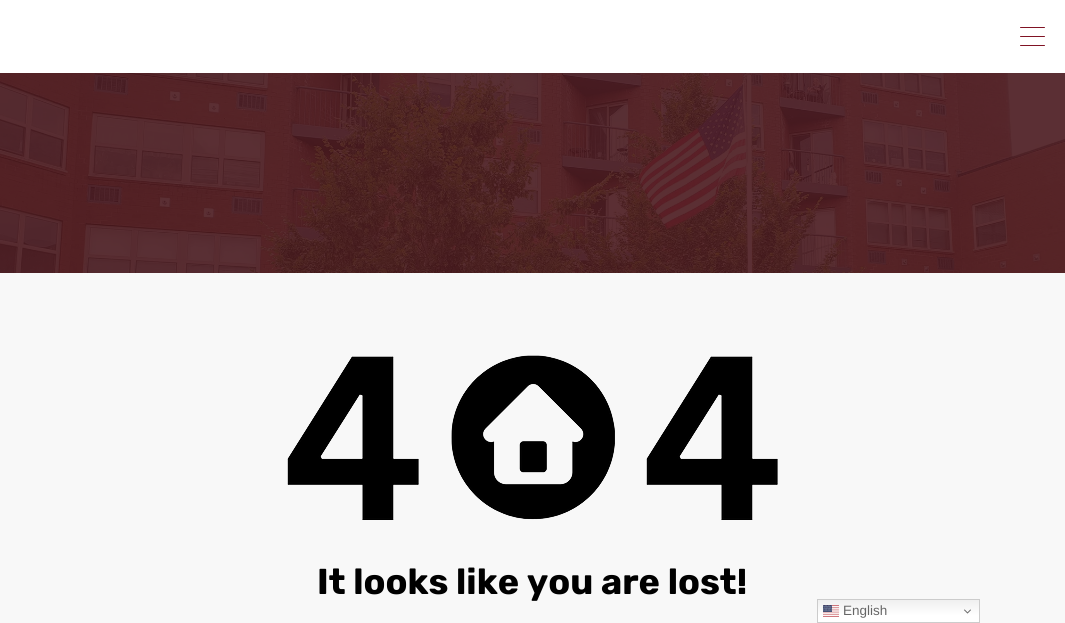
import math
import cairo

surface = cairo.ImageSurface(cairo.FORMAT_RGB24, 1065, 623)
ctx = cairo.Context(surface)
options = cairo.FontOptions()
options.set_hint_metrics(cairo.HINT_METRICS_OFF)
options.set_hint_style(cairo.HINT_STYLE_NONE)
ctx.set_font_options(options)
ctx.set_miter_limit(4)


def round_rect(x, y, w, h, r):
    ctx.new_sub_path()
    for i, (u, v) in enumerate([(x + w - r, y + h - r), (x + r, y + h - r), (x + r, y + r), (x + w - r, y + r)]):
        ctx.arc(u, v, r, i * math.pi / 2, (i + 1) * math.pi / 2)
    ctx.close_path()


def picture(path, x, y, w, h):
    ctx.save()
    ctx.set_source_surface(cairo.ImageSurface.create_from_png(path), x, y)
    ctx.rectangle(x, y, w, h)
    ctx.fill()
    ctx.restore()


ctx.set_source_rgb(0.969, 0.969, 0.969)
ctx.paint()
ctx.set_source_rgb(1, 1, 1)
ctx.rectangle(0, 0, 1065, 73)
ctx.fill()
ctx.set_source_rgb(0.502, 0.078, 0.141)
round_rect(1020, 36, 25, 1, 0.5)
ctx.fill()
round_rect(1020, 27, 25, 1, 0.5)
ctx.fill()
round_rect(1020, 45, 25, 1, 0.5)
ctx.fill()
picture("img1.png", 0, 73, 1065, 200)
picture("img2.png", 287, 355, 491, 165)
ctx.select_font_face("Rubik", cairo.FONT_SLANT_NORMAL, cairo.FONT_WEIGHT_BOLD)
ctx.set_font_size(36)
ctx.set_source_rgb(0, 0, 0)
ctx.move_to(317, 594)
ctx.show_text("It looks like you are lost!")
gradient = cairo.LinearGradient(899, 599, 899, 623)
gradient.add_color_stop_rgba(0, 0.937, 0.937, 0.937, 1)
gradient.add_color_stop_rgba(0.7, 1, 1, 1, 1)
ctx.set_source(gradient)
ctx.rectangle(818, 600, 161, 22)
ctx.fill()
ctx.rectangle(817.5, 599.5, 162, 23)
ctx.set_source_rgb(0.8, 0.8, 0.8)
ctx.set_line_width(1)
ctx.stroke()
picture("img3.png", 823, 605, 16, 12)
ctx.select_font_face("Liberation Sans")
ctx.set_font_size(13.5)
ctx.set_source_rgb(0.4, 0.4, 0.4)
ctx.move_to(843, 615)
ctx.show_text("English")
picture("img4.png", 964, 609, 7, 5)
surface.write_to_png("page.png")
